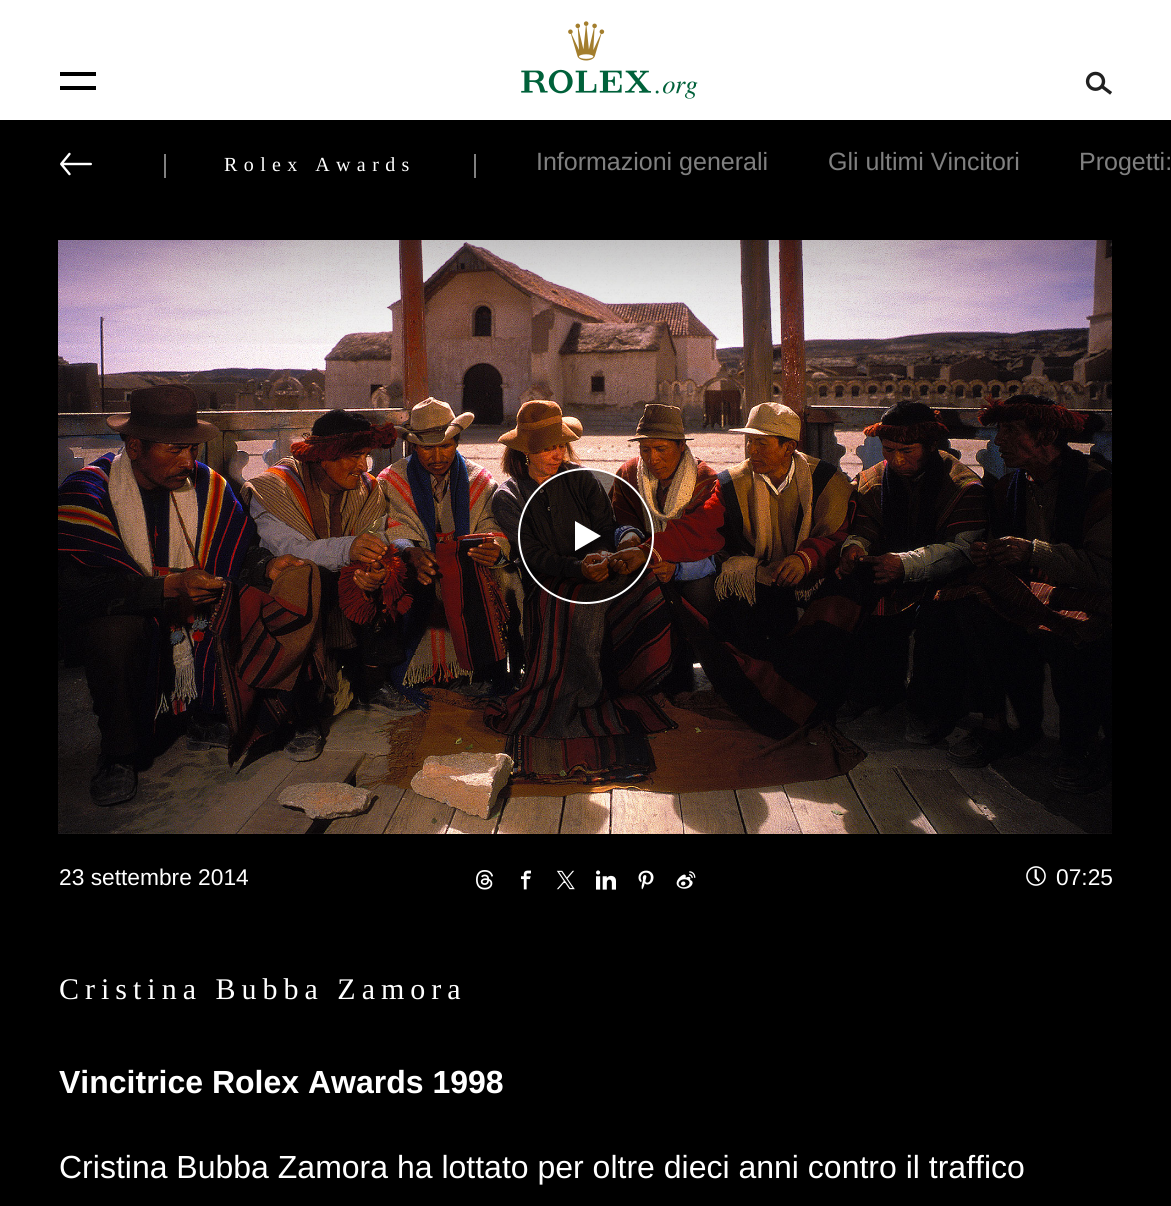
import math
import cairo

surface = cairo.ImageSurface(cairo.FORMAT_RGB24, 1171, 1206)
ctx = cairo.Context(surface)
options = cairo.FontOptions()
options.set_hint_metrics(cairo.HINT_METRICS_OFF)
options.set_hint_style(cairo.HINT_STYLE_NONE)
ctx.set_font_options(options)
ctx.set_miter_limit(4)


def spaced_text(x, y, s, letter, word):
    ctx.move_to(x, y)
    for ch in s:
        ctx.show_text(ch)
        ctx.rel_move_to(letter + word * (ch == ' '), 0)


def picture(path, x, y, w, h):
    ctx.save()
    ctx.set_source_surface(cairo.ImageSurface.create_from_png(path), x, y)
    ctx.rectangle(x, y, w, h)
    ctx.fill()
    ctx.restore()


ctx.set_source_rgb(0, 0, 0)
ctx.paint()
ctx.set_source_rgb(1, 1, 1)
ctx.rectangle(0, 0, 1171, 120)
ctx.fill()
ctx.set_source_rgb(0, 0, 0)
ctx.rectangle(60, 72, 36, 4)
ctx.fill()
ctx.rectangle(60, 86, 36, 4)
ctx.fill()
picture("img1.png", 521, 21, 177, 78)
picture("img2.png", 1085, 71, 27, 24)
picture("img3.png", 60, 152, 32, 24)
ctx.set_source_rgb(0.502, 0.502, 0.502)
ctx.rectangle(164, 154, 2, 24)
ctx.fill()
ctx.select_font_face("Liberation Serif")
ctx.set_font_size(20)
ctx.set_source_rgb(1, 1, 1)
spaced_text(224, 171, "Rolex Awards", 6.4, 0)
ctx.set_source_rgb(0.502, 0.502, 0.502)
ctx.rectangle(474, 154, 2, 24)
ctx.fill()
ctx.select_font_face("Liberation Sans")
ctx.set_font_size(25)
ctx.move_to(536, 170)
ctx.show_text("Informazioni generali")
ctx.move_to(828, 170)
ctx.show_text("Gli ultimi Vincitori")
ctx.move_to(1079, 170)
ctx.show_text("Progetti:")
picture("img4.png", 58, 240, 1054, 594)
gradient = cairo.LinearGradient(586, 0, 586, 360)
gradient.add_color_stop_rgba(0, 0, 0, 0, 0.6)
gradient.add_color_stop_rgba(0.6, 0, 0, 0, 0.3)
gradient.add_color_stop_rgba(0.8, 0, 0, 0, 0.1)
gradient.add_color_stop_rgba(0.9, 0, 0, 0, 0.05)
gradient.add_color_stop_rgba(1, 0, 0, 0, 0)
ctx.set_source(gradient)
ctx.rectangle(58, 240, 1054, 104)
ctx.fill()
ctx.set_source_rgba(0, 0, 0, 0.5)
ctx.arc(586, 536, 67, 0, 2 * math.pi)
ctx.fill_preserve()
ctx.set_source_rgb(1, 1, 1)
ctx.stroke()
ctx.new_path()
ctx.move_to(601, 536)
ctx.line_to(575, 551)
ctx.line_to(575, 521)
ctx.line_to(588, 528.5)
ctx.close_path()
ctx.fill()
ctx.set_font_size(22.75)
ctx.move_to(59, 885)
ctx.show_text("23 settembre 2014")
picture("img5.png", 476, 870, 17, 20)
picture("img6.png", 521, 870, 10, 20)
picture("img7.png", 556, 870, 19, 20)
picture("img8.png", 596, 870, 20, 20)
picture("img9.png", 638, 870, 16, 20)
picture("img10.png", 676, 871, 20, 18)
picture("img11.png", 1026, 866, 20, 20)
ctx.move_to(1056, 885)
ctx.show_text("07:25")
ctx.select_font_face("Liberation Serif")
ctx.set_font_size(30)
spaced_text(59, 999, "Cristina Bubba Zamora", 6, 0)
ctx.select_font_face("Liberation Sans", cairo.FONT_SLANT_NORMAL, cairo.FONT_WEIGHT_BOLD)
ctx.set_font_size(32)
ctx.move_to(59, 1093)
ctx.show_text("Vincitrice Rolex Awards 1998")
ctx.select_font_face("Liberation Sans")
ctx.move_to(59, 1178)
ctx.show_text("Cristina Bubba Zamora ha lottato per oltre dieci anni contro il traffico")
surface.write_to_png("page.png")
